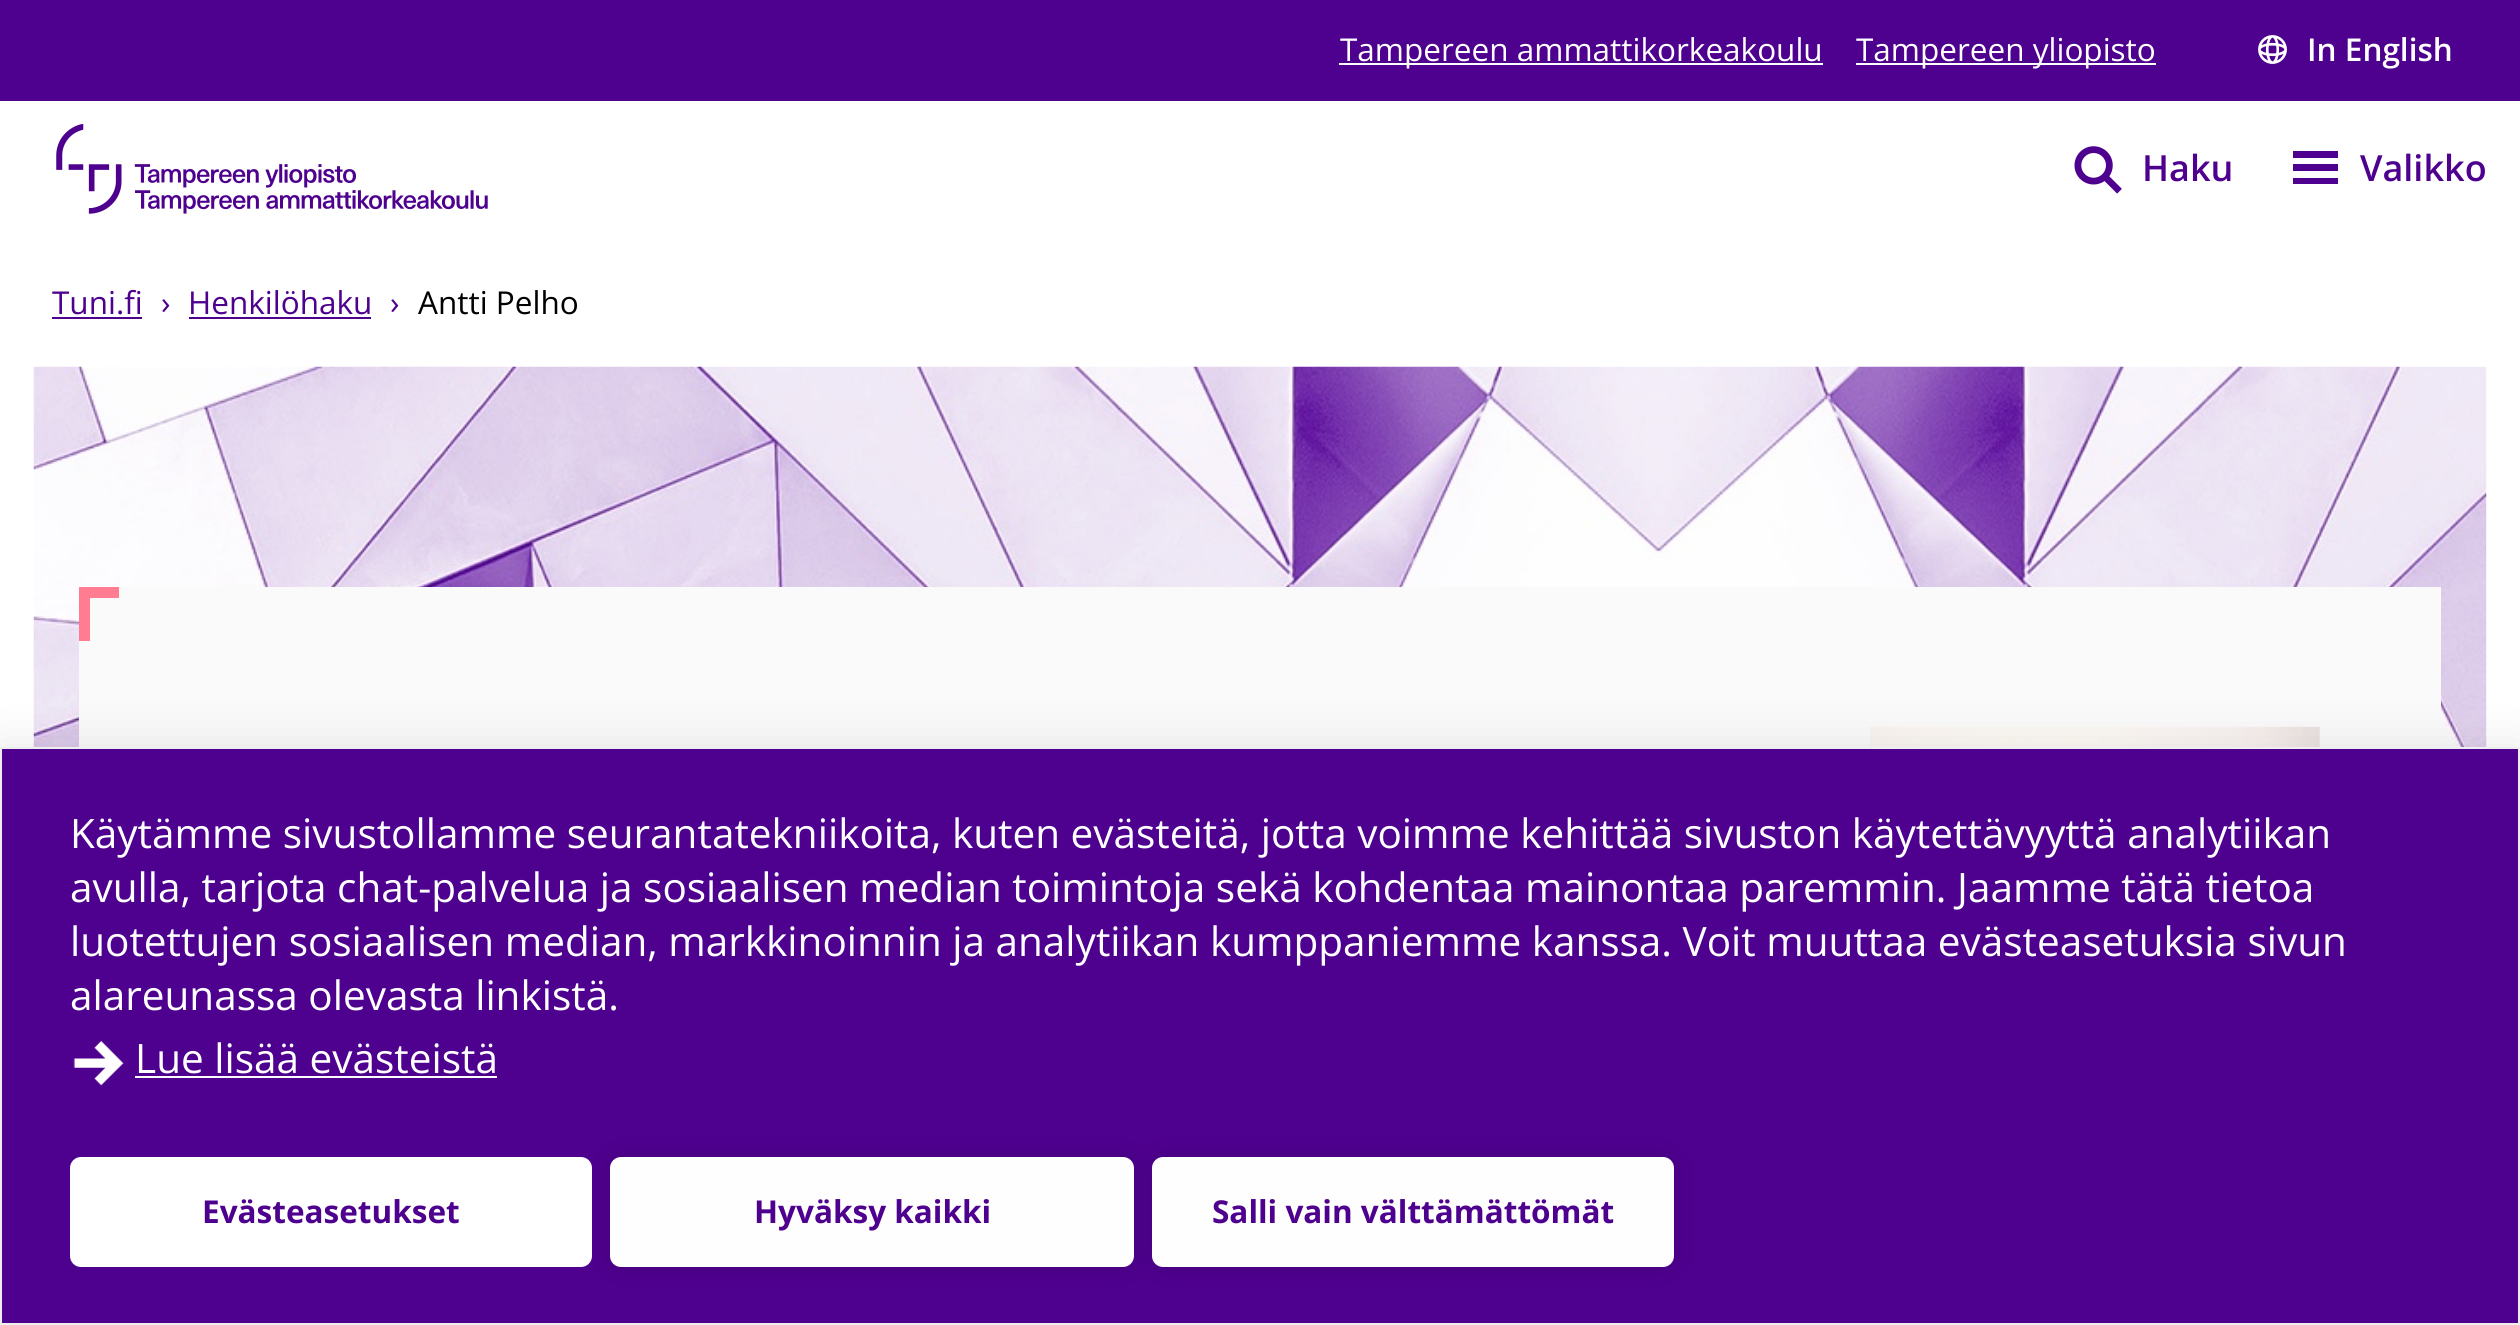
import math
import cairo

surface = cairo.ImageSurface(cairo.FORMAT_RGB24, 2520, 1325)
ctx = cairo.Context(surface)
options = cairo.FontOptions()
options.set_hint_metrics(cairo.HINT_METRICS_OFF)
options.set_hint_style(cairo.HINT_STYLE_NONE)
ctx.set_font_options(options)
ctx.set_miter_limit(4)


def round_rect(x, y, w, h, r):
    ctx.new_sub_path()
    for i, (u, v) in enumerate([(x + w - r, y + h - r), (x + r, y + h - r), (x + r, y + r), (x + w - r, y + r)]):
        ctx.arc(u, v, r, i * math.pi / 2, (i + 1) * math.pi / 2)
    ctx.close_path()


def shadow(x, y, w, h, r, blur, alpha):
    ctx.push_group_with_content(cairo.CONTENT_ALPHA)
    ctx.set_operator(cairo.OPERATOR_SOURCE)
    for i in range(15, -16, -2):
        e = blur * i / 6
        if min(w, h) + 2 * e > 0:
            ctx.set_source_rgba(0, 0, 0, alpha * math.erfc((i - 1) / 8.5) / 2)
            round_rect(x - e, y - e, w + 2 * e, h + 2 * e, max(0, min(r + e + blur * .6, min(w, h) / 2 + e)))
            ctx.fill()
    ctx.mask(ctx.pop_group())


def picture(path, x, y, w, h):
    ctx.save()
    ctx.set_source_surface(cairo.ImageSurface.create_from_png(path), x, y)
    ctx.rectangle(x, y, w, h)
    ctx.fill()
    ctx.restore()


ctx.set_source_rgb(1, 1, 1)
ctx.paint()
ctx.set_source_rgb(0.306, 0, 0.557)
ctx.rectangle(0, 0, 2520, 101)
ctx.fill()
ctx.set_source_rgb(1, 1, 1)
ctx.rectangle(1339, 63, 484, 2)
ctx.fill()
ctx.select_font_face("Open Sans")
ctx.set_font_size(31.5)
ctx.move_to(1340, 61)
ctx.show_text("Tampereen ammattikorkeakoulu")
ctx.rectangle(1856, 63, 300, 2)
ctx.fill()
ctx.move_to(1856, 61)
ctx.show_text("Tampereen yliopisto")
picture("img1.png", 2258, 35, 29, 29)
ctx.select_font_face("Open Sans SemiBold")
ctx.move_to(2307, 61)
ctx.show_text("In English")
picture("img2.png", 56, 124, 432, 90)
picture("img3.png", 2074, 146, 48, 48)
ctx.set_font_size(36)
ctx.set_source_rgb(0.306, 0, 0.557)
ctx.move_to(2142, 181)
ctx.show_text("Haku")
ctx.new_path()
ctx.move_to(2338, 151)
ctx.line_to(2338, 158)
ctx.line_to(2293, 158)
ctx.line_to(2293, 151)
ctx.close_path()
ctx.move_to(2293, 171)
ctx.line_to(2338, 171)
ctx.line_to(2338, 164)
ctx.line_to(2293, 164)
ctx.close_path()
ctx.move_to(2293, 184)
ctx.line_to(2338, 184)
ctx.line_to(2338, 178)
ctx.line_to(2293, 178)
ctx.close_path()
ctx.fill()
ctx.move_to(2360, 181)
ctx.show_text("Valikko")
ctx.select_font_face("Open Sans")
ctx.set_font_size(31.5)
ctx.move_to(52, 314)
ctx.show_text("Tuni.fi")
ctx.rectangle(52, 317, 90, 2)
ctx.fill()
ctx.move_to(161, 314)
ctx.show_text("›")
ctx.move_to(188, 314)
ctx.show_text("Henkilöhaku")
ctx.rectangle(189, 317, 182, 2)
ctx.fill()
ctx.move_to(390, 314)
ctx.show_text("›")
ctx.set_source_rgb(0, 0, 0)
ctx.move_to(418, 314)
ctx.show_text("Antti Pelho")
picture("img4.png", 33, 366, 2454, 381)
ctx.set_source_rgb(0.98, 0.98, 0.98)
ctx.rectangle(79, 587, 2362, 160)
ctx.fill()
ctx.set_source_rgb(1, 0.486, 0.569)
ctx.new_path()
ctx.move_to(90, 641)
ctx.line_to(79, 641)
ctx.line_to(79, 587)
ctx.line_to(119, 587)
ctx.line_to(119, 598)
ctx.line_to(90, 598)
ctx.close_path()
ctx.fill()
picture("img5.png", 1870, 726, 450, 21)
ctx.set_source_rgb(0, 0, 0)
shadow(0, 747, 2520, 578, 0, 22.5, 0.1)
ctx.set_source_rgb(0.306, 0, 0.557)
ctx.rectangle(1, 748, 2518, 576)
ctx.fill_preserve()
ctx.set_source_rgb(0.933, 0.933, 0.933)
ctx.stroke()
ctx.set_font_size(40.5)
ctx.set_source_rgb(1, 1, 1)
ctx.move_to(70, 848)
ctx.show_text("Käytämme sivustollamme seurantatekniikoita, kuten evästeitä, jotta voimme kehittää sivuston käytettävyyttä analytiikan")
ctx.move_to(70, 902)
ctx.show_text("avulla, tarjota chat-palvelua ja sosiaalisen median toimintoja sekä kohdentaa mainontaa paremmin. Jaamme tätä tietoa")
ctx.move_to(70, 956)
ctx.show_text("luotettujen sosiaalisen median, markkinoinnin ja analytiikan kumppaniemme kanssa. Voit muuttaa evästeasetuksia sivun")
ctx.move_to(70, 1010)
ctx.show_text("alareunassa olevasta linkistä.")
picture("img6.png", 73, 1041, 51, 45)
ctx.move_to(135, 1073)
ctx.show_text("Lue lisää evästeistä")
ctx.rectangle(135, 1076, 362, 2)
ctx.fill()
round_rect(70, 1157, 522, 110, 11)
ctx.fill()
ctx.select_font_face("Open Sans", cairo.FONT_SLANT_NORMAL, cairo.FONT_WEIGHT_BOLD)
ctx.set_font_size(31.5)
ctx.set_source_rgb(0.306, 0, 0.557)
ctx.move_to(202, 1223)
ctx.show_text("Evästeasetukset")
ctx.set_source_rgb(0, 0, 0)
shadow(610, 1157, 524, 110, 11, 11, 0.12)
ctx.set_source_rgb(1, 0.996, 0.996)
round_rect(610, 1157, 524, 110, 11)
ctx.fill()
ctx.set_source_rgb(0.306, 0, 0.557)
ctx.move_to(754, 1223)
ctx.show_text("Hyväksy kaikki")
ctx.set_source_rgb(0, 0, 0)
shadow(1152, 1157, 522, 110, 11, 11, 0.12)
ctx.set_source_rgb(1, 0.996, 0.996)
round_rect(1152, 1157, 522, 110, 11)
ctx.fill()
ctx.set_source_rgb(0.306, 0, 0.557)
ctx.move_to(1212, 1223)
ctx.show_text("Salli vain välttämättömät")
surface.write_to_png("page.png")
